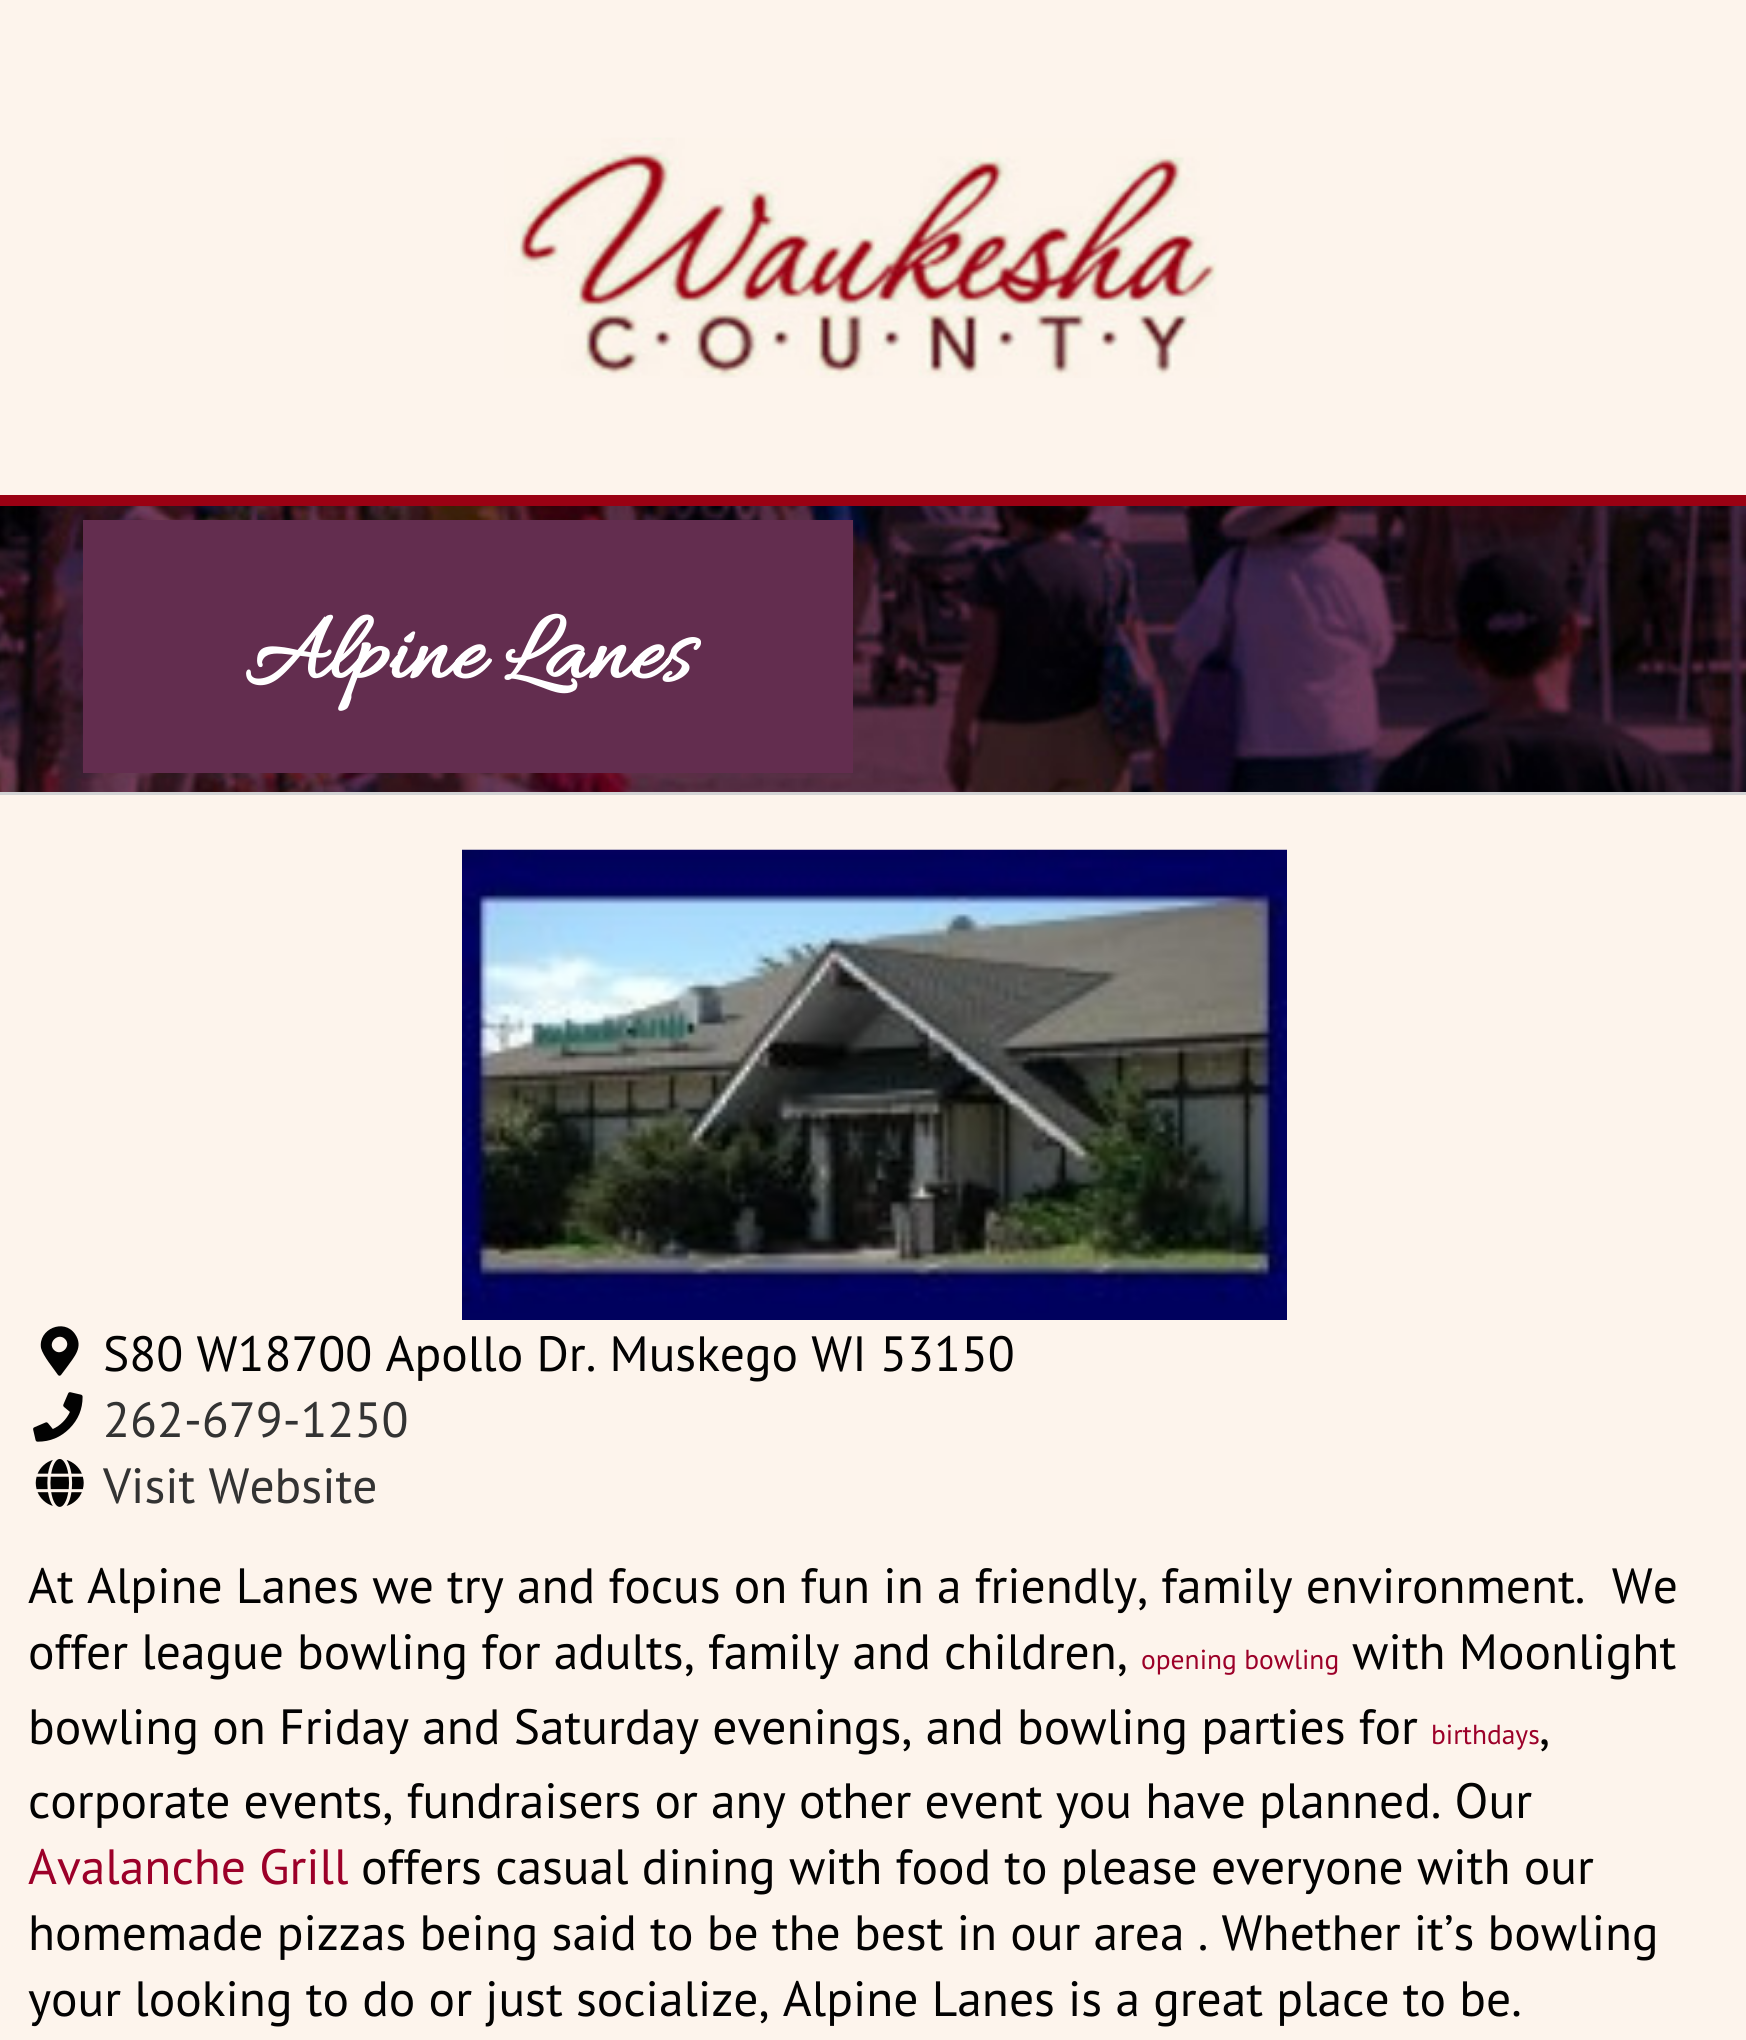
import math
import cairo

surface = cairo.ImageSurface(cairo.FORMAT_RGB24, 1746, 2040)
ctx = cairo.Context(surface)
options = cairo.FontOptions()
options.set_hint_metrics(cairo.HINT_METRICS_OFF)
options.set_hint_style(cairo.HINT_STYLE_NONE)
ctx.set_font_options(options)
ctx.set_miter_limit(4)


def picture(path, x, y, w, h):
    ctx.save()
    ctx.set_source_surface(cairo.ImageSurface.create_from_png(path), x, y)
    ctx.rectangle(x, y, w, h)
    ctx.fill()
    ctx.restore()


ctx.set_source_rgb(1, 1, 1)
ctx.paint()
ctx.set_source_rgb(0.992, 0.957, 0.922)
ctx.rectangle(0, 0, 1746, 495)
ctx.fill()
ctx.set_source_rgb(0.604, 0.004, 0.075)
ctx.rectangle(0, 495, 1746, 11)
ctx.fill()
picture("img1.png", 504, 137, 715, 241)
picture("img2.png", 0, 506, 1746, 286)
ctx.set_source_rgb(0.824, 0.827, 0.831)
ctx.rectangle(0, 792, 1746, 3)
ctx.fill()
ctx.set_source_rgb(0.388, 0.176, 0.31)
ctx.rectangle(83, 520, 770, 253)
ctx.fill()
ctx.select_font_face("Allura", cairo.FONT_SLANT_NORMAL, cairo.FONT_WEIGHT_BOLD)
ctx.set_font_size(99)
ctx.set_source_rgb(1, 1, 1)
ctx.move_to(245, 677)
ctx.show_text("Alpine Lanes")
ctx.set_source_rgb(0.992, 0.957, 0.922)
ctx.rectangle(0, 795, 1746, 1245)
ctx.fill()
picture("img3.png", 462, 849, 825, 471)
ctx.set_source_rgb(0.008, 0.008, 0.008)
ctx.new_path()
ctx.move_to(58, 1375)
ctx.curve_to(54, 1369, 43, 1356, 41, 1348)
ctx.curve_to(38, 1329, 64, 1318, 75, 1334)
ctx.curve_to(84, 1347, 74, 1357, 67, 1367)
ctx.line_to(61, 1375)
ctx.curve_to(60, 1376, 59, 1376, 58, 1375)
ctx.close_path()
ctx.move_to(54, 1350)
ctx.curve_to(61, 1357, 72, 1346, 65, 1339)
ctx.curve_to(58, 1332, 47, 1343, 54, 1350)
ctx.close_path()
ctx.fill()
ctx.select_font_face("PT Sans")
ctx.set_font_size(49.5)
ctx.move_to(103, 1371)
ctx.show_text("S80 W18700 Apollo Dr. Muskego WI 53150")
picture("img4.png", 33, 1392, 50, 50)
ctx.set_source_rgb(0.2, 0.2, 0.2)
ctx.move_to(103, 1437)
ctx.show_text("262-679-1250")
picture("img5.png", 35, 1459, 49, 48)
ctx.move_to(103, 1503)
ctx.show_text("Visit Website")
ctx.set_source_rgb(0.008, 0.008, 0.008)
ctx.move_to(28, 1603)
ctx.show_text("At Alpine Lanes we try and focus on fun in a friendly, family environment.  We")
ctx.move_to(28, 1669)
ctx.show_text("offer league bowling for adults, family and children,")
ctx.set_font_size(27.5)
ctx.set_source_rgb(0.612, 0, 0.161)
ctx.move_to(1141, 1669)
ctx.show_text("opening bowling")
ctx.set_font_size(49.5)
ctx.set_source_rgb(0.008, 0.008, 0.008)
ctx.move_to(1352, 1669)
ctx.show_text("with Moonlight")
ctx.move_to(28, 1744)
ctx.show_text("bowling on Friday and Saturday evenings, and bowling parties for")
ctx.set_font_size(27.5)
ctx.set_source_rgb(0.612, 0, 0.161)
ctx.move_to(1431, 1744)
ctx.show_text("birthdays")
ctx.set_font_size(49.5)
ctx.set_source_rgb(0.008, 0.008, 0.008)
ctx.move_to(1539, 1744)
ctx.show_text(",")
ctx.move_to(28, 1818)
ctx.show_text("corporate events, fundraisers or any other event you have planned. Our")
ctx.set_source_rgb(0.612, 0, 0.161)
ctx.move_to(28, 1884)
ctx.show_text("Avalanche Grill")
ctx.set_source_rgb(0.008, 0.008, 0.008)
ctx.move_to(361, 1884)
ctx.show_text("offers casual dining with food to please everyone with our")
ctx.move_to(28, 1950)
ctx.show_text("homemade pizzas being said to be the best in our area . Whether it’s bowling")
ctx.move_to(28, 2016)
ctx.show_text("your looking to do or just socialize, Alpine Lanes is a great place to be.")
surface.write_to_png("page.png")
